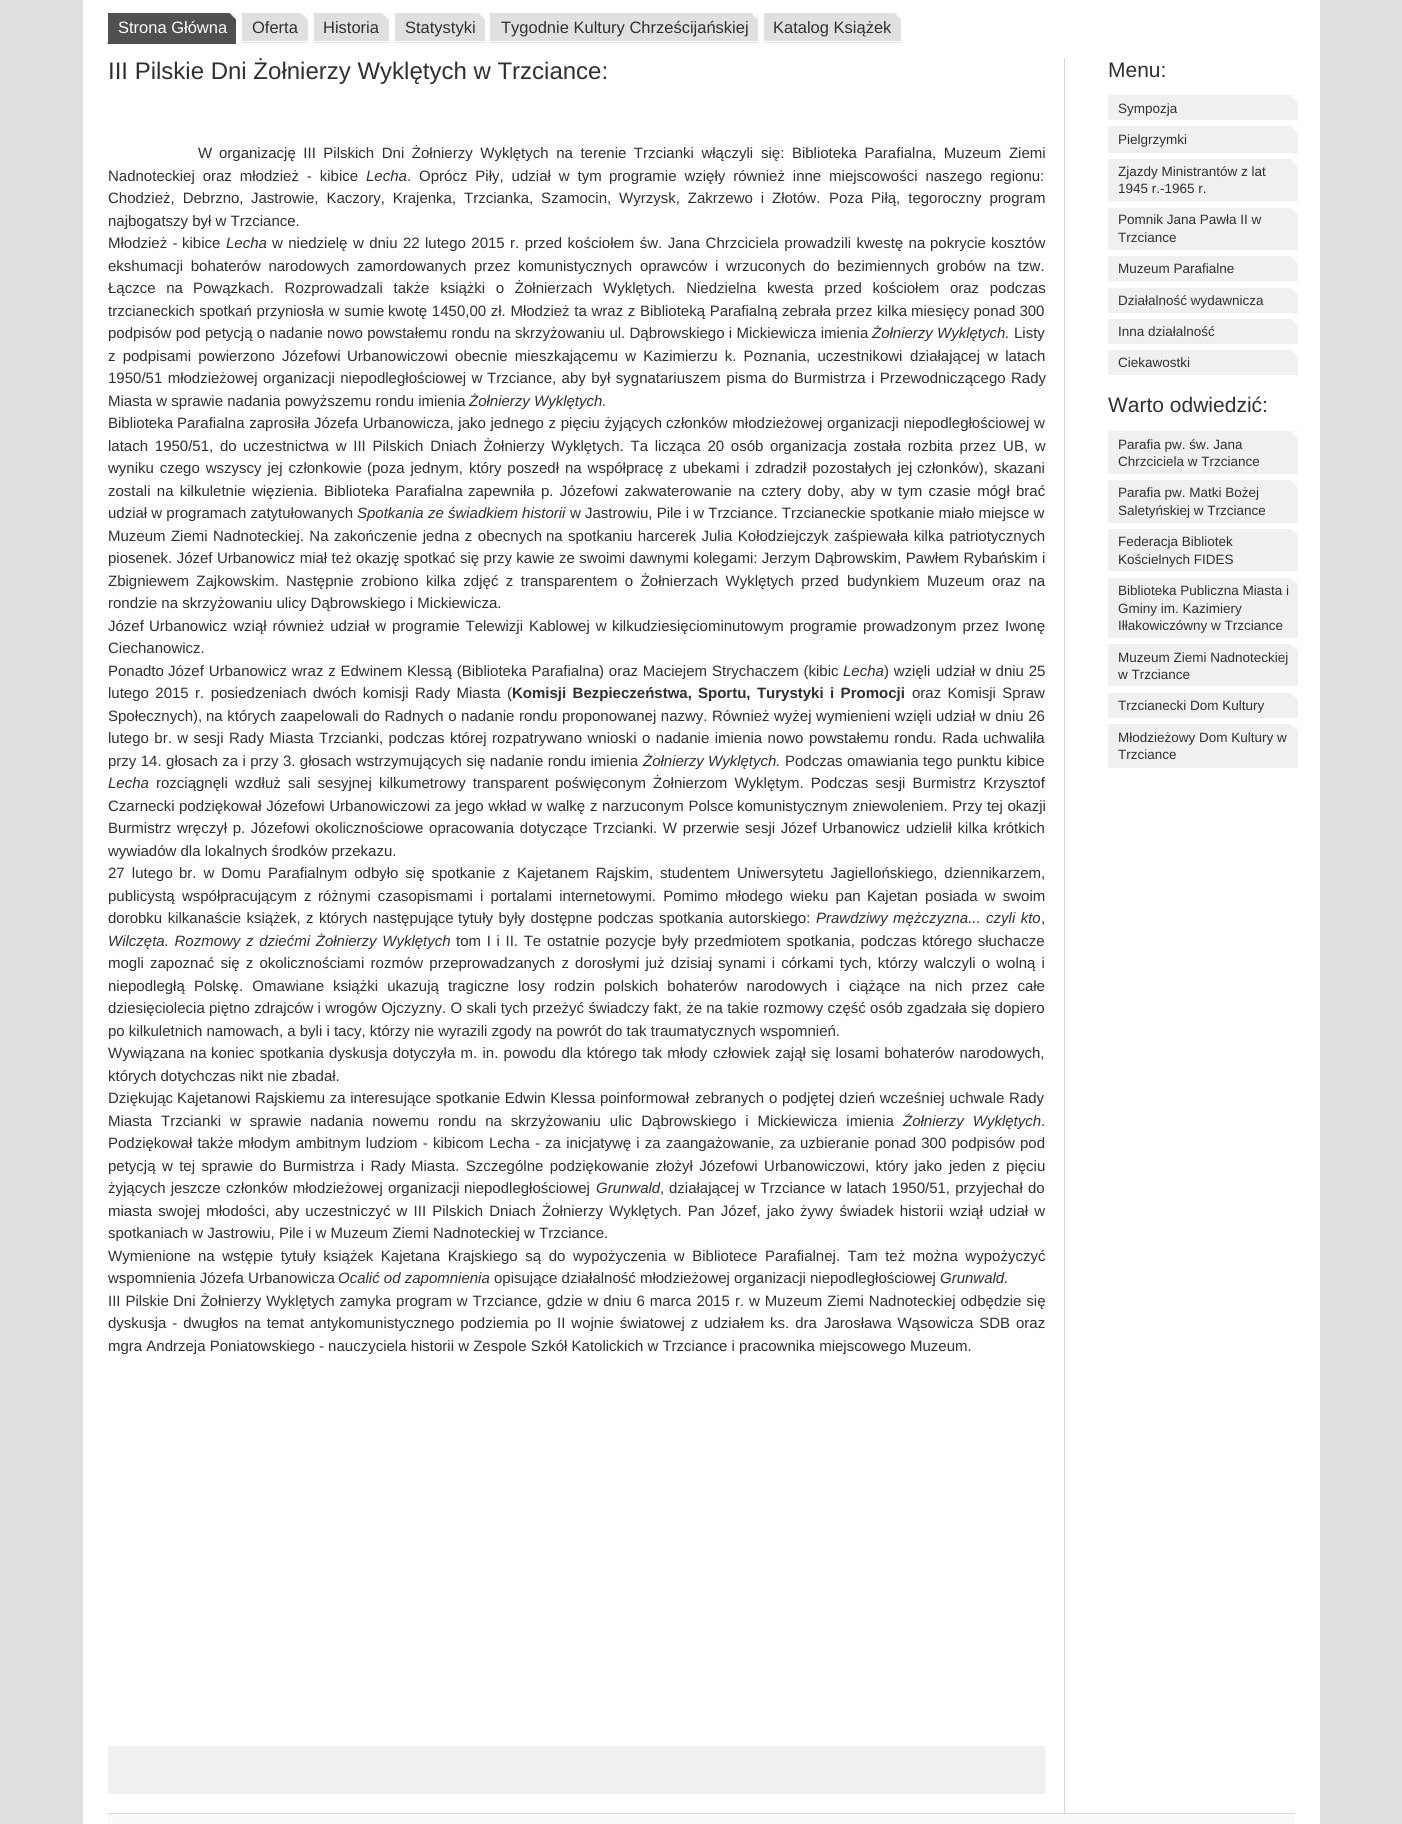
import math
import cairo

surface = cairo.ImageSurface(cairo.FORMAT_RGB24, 1402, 1824)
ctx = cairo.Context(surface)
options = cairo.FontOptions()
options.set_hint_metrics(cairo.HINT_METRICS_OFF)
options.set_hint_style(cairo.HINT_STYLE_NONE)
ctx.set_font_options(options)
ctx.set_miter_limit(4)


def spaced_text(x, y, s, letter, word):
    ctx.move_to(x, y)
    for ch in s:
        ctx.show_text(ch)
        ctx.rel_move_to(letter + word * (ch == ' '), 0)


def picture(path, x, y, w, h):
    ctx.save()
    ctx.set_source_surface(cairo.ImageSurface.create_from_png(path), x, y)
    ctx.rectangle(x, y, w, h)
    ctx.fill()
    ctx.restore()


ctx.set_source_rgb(0.878, 0.878, 0.878)
ctx.paint()
ctx.set_source_rgb(1, 1, 1)
ctx.rectangle(83, 0, 1237, 1824)
ctx.fill()
ctx.set_source_rgb(0.314, 0.314, 0.314)
ctx.rectangle(108, 13, 128, 31)
ctx.fill()
picture("img1.png", 229, 13, 7, 7)
ctx.set_source_rgb(0.878, 0.878, 0.878)
ctx.rectangle(242, 13, 66, 30)
ctx.fill()
picture("img2.png", 301, 13, 7, 6)
ctx.rectangle(314, 13, 75, 30)
ctx.fill()
picture("img3.png", 382, 13, 7, 6)
ctx.rectangle(395, 13, 90, 30)
ctx.fill()
picture("img4.png", 478, 13, 7, 6)
ctx.rectangle(490, 13, 268, 30)
ctx.fill()
picture("img5.png", 751, 13, 7, 6)
ctx.rectangle(764, 13, 137, 30)
ctx.fill()
picture("img6.png", 895, 13, 6, 6)
ctx.select_font_face("Liberation Sans")
ctx.set_font_size(16.5)
ctx.set_source_rgb(1, 1, 1)
ctx.move_to(118, 33)
ctx.show_text("Strona Główna")
ctx.new_path()
ctx.move_to(107.5, 43)
ctx.line_to(236, 43)
ctx.set_source_rgb(0.314, 0.314, 0.314)
ctx.set_line_width(1.2)
ctx.set_dash([1.25, 1.25])
ctx.stroke()
ctx.set_source_rgb(0.188, 0.188, 0.188)
ctx.move_to(252, 33)
ctx.show_text("Oferta")
ctx.set_source_rgb(1, 1, 1)
ctx.rectangle(241, 41, 67, 1)
ctx.fill()
ctx.set_source_rgb(0.188, 0.188, 0.188)
ctx.move_to(323, 33)
ctx.show_text("Historia")
ctx.set_source_rgb(1, 1, 1)
ctx.rectangle(313, 41, 76, 1)
ctx.fill()
ctx.set_source_rgb(0.188, 0.188, 0.188)
ctx.move_to(405, 33)
ctx.show_text("Statystyki")
ctx.set_source_rgb(1, 1, 1)
ctx.rectangle(394, 41, 91, 1)
ctx.fill()
ctx.set_source_rgb(0.188, 0.188, 0.188)
ctx.move_to(501, 33)
ctx.show_text("Tygodnie Kultury Chrześcijańskiej")
ctx.set_source_rgb(1, 1, 1)
ctx.rectangle(489, 41, 269, 1)
ctx.fill()
ctx.set_source_rgb(0.188, 0.188, 0.188)
ctx.move_to(773, 33)
ctx.show_text("Katalog Książek")
ctx.set_source_rgb(1, 1, 1)
ctx.rectangle(763, 41, 138, 1)
ctx.fill()
ctx.set_source_rgb(0.847, 0.847, 0.847)
ctx.rectangle(1064, 58, 1, 1755)
ctx.fill()
ctx.set_font_size(24)
ctx.set_source_rgb(0.188, 0.188, 0.188)
ctx.move_to(108, 79)
ctx.show_text("III Pilskie Dni Żołnierzy Wyklętych w Trzciance:")
ctx.set_font_size(15)
ctx.move_to(198, 158)
ctx.show_text("W")
spaced_text(219, 158, "organizację III Pilskich Dni Żołnierzy Wyklętych na terenie Trzcianki włączyli", 0, 3.4)
spaced_text(761, 158, "się: Biblioteka Parafialna, Muzeum Ziemi", 0, 3.4)
spaced_text(108, 181, "Nadnoteckiej oraz młodzież - kibice", 0, 3.75)
ctx.select_font_face("Liberation Sans", cairo.FONT_SLANT_ITALIC)
ctx.move_to(366, 181)
ctx.show_text("Lecha")
ctx.select_font_face("Liberation Sans")
spaced_text(407, 181, ". Oprócz Piły, udział w tym", 0, 3.75)
spaced_text(609, 181, "programie wzięły również inne miejscowości naszego regionu:", 0, 3.75)
spaced_text(108, 203, "Chodzież, Debrzno,", 0, 3.75)
spaced_text(251, 203, "Jastrowie, Kaczory, Krajenka, Trzcianka, Szamocin, Wyrzysk, Zakrzewo i Złotów.", 0, 3.75)
spaced_text(829, 203, "Poza Piłą, tegoroczny program", 0, 3.75)
ctx.move_to(108, 226)
ctx.show_text("najbogatszy był w Trzciance.")
spaced_text(108, 248, "Młodzież -", 0, 1.25)
ctx.move_to(182, 248)
ctx.show_text("kibice")
ctx.select_font_face("Liberation Sans", cairo.FONT_SLANT_ITALIC)
ctx.move_to(226, 248)
ctx.show_text("Lecha")
ctx.select_font_face("Liberation Sans")
spaced_text(272, 248, "w niedzielę w dniu 22", 0, 1.25)
spaced_text(425, 248, "lutego 2015 r. przed kościołem św. Jana Chrzciciela prowadzili kwestę na", 0, 1.25)
spaced_text(930, 248, "pokrycie kosztów", 0, 1)
spaced_text(108, 271, "ekshumacji bohaterów narodowych zamordowanych przez", 0, 3.5)
spaced_text(518, 271, "komunistycznych oprawców i wrzuconych do bezimiennych grobów na tzw.", 0, 3.5)
spaced_text(108, 293, "Łączce na", 0, 6.5)
spaced_text(193, 293, "Powązkach. Rozprowadzali także książki o Żołnierzach Wyklętych. Niedzielna", 0, 6.5)
spaced_text(767, 293, "kwesta przed kościołem oraz podczas", 0, 6.5)
spaced_text(108, 316, "trzcianeckich spotkań przyniosła w sumie", 0, 0.5)
spaced_text(388, 316, "kwotę 1450,00 zł. Młodzież ta wraz z Biblioteką Parafialną zebrała przez kilka", 0, 0.5)
ctx.move_to(911, 316)
ctx.show_text("miesięcy ponad 300")
spaced_text(108, 338, "podpisów pod petycją o nadanie nowo powstałemu rondu na skrzyżowaniu ul. Dąbrowskiego i Mickiewicza imienia", 0, 0.1)
ctx.select_font_face("Liberation Sans", cairo.FONT_SLANT_ITALIC)
ctx.move_to(872, 338)
ctx.show_text("Żołnierzy Wyklętych.")
ctx.select_font_face("Liberation Sans")
ctx.move_to(1014, 338)
ctx.show_text("Listy")
spaced_text(108, 361, "z podpisami powierzono Józefowi", 0, 3)
spaced_text(347, 361, "Urbanowiczowi obecnie mieszkającemu w Kazimierzu k. Poznania, uczestnikowi", 0, 3)
spaced_text(910, 361, "działającej w latach", 0, 3)
spaced_text(108, 383, "1950/51 młodzieżowej organizacji niepodległościowej w", 0, 1.25)
spaced_text(487, 383, "Trzciance, aby był sygnatariuszem pisma do Burmistrza i Przewodniczącego Rady", 0, 1.25)
ctx.move_to(108, 406)
ctx.show_text("Miasta w sprawie nadania powyższemu rondu imienia")
ctx.select_font_face("Liberation Sans", cairo.FONT_SLANT_ITALIC)
ctx.move_to(469, 406)
ctx.show_text("Żołnierzy Wyklętych.")
ctx.select_font_face("Liberation Sans")
ctx.move_to(108, 428)
ctx.show_text("Biblioteka")
spaced_text(177, 428, "Parafialna zaprosiła Józefa Urbanowicza, jako jednego z pięciu żyjących", 0, 0.5)
spaced_text(666, 428, "członków młodzieżowej organizacji niepodległościowej w", 0, 0.5)
spaced_text(108, 451, "latach 1950/51, do", 0, 2.6)
spaced_text(243, 451, "uczestnictwa w III Pilskich Dniach Żołnierzy Wyklętych. Ta licząca 20 osób", 0, 2.6)
spaced_text(770, 451, "organizacja została rozbita przez UB, w", 0, 2.6)
spaced_text(108, 473, "wyniku czego wszyscy jej członkowie", 0, 1.75)
spaced_text(367, 473, "(poza jednym, który poszedł na współpracę z ubekami i zdradził pozostałych jej", 0, 1.75)
spaced_text(917, 473, "członków), skazani", 0, 2)
spaced_text(108, 496, "zostali na kilkuletnie więzienia. Biblioteka Parafialna", 0, 2.1)
spaced_text(468, 496, "zapewniła p. Józefowi zakwaterowanie na cztery doby, aby w tym czasie mógł brać", 0, 2.1)
ctx.move_to(108, 518)
ctx.show_text("udział w programach zatytułowanych")
ctx.select_font_face("Liberation Sans", cairo.FONT_SLANT_ITALIC)
ctx.move_to(357, 518)
ctx.show_text("Spotkania ze świadkiem historii")
ctx.select_font_face("Liberation Sans")
ctx.move_to(570, 518)
ctx.show_text("w Jastrowiu, Pile i w Trzciance. Trzcianeckie spotkanie miało miejsce w")
spaced_text(108, 541, "Muzeum Ziemi Nadnoteckiej. Na zakończenie jedna z obecnych", 0, 1.25)
spaced_text(546, 541, "na spotkaniu harcerek Julia Kołodziejczyk zaśpiewała kilka patriotycznych", 0, 1.25)
spaced_text(108, 563, "piosenek. Józef Urbanowicz miał też okazję spotkać się przy kawie ze swoimi dawnymi kolegami: Jerzym Dąbrowskim, Pawłem Rybańskim i", 0, 0.25)
spaced_text(108, 586, "Zbigniewem Zajkowskim.", 0, 3.25)
spaced_text(286, 586, "Następnie zrobiono kilka zdjęć z transparentem o Żołnierzach Wyklętych przed", 0, 3.25)
spaced_text(847, 586, "budynkiem Muzeum oraz na", 0, 3.25)
ctx.move_to(108, 608)
ctx.show_text("rondzie na skrzyżowaniu ulicy Dąbrowskiego i Mickiewicza.")
ctx.move_to(108, 631)
ctx.show_text("Józef")
spaced_text(149, 631, "Urbanowicz wziął również udział w programie Telewizji Kablowej w", 0, 1.75)
spaced_text(612, 631, "kilkudziesięciominutowym programie prowadzonym przez Iwonę", 0, 1.75)
ctx.move_to(108, 653)
ctx.show_text("Ciechanowicz.")
ctx.move_to(108, 676)
ctx.show_text("Ponadto")
spaced_text(168, 676, "Józef Urbanowicz wraz z Edwinem Klessą (Biblioteka Parafialna) oraz Maciejem", 0, 0.6)
spaced_text(712, 676, "Strychaczem (kibic", 0, 0.6)
ctx.select_font_face("Liberation Sans", cairo.FONT_SLANT_ITALIC)
ctx.move_to(843, 676)
ctx.show_text("Lecha")
ctx.select_font_face("Liberation Sans")
spaced_text(884, 676, ") wzięli", 0, 0.6)
spaced_text(936, 676, "udział w dniu 25", 0, 0.6)
spaced_text(108, 698, "lutego 2015 r. posiedzeniach dwóch komisji Rady Miasta (", 0, 2.25)
ctx.select_font_face("Liberation Sans", cairo.FONT_SLANT_NORMAL, cairo.FONT_WEIGHT_BOLD)
spaced_text(512, 698, "Komisji Bezpieczeństwa,", 0, 2.25)
spaced_text(698, 698, "Sportu, Turystyki i Promocji", 0, 2.25)
ctx.select_font_face("Liberation Sans")
spaced_text(912, 698, "oraz Komisji Spraw", 0, 2.25)
ctx.move_to(108, 721)
ctx.show_text("Społecznych),")
spaced_text(206, 721, "na których zaapelowali do Radnych o nadanie rondu proponowanej nazwy. Również", 0, 0.4)
spaced_text(774, 721, "wyżej wymienieni wzięli udział w dniu 26", 0, 0.4)
spaced_text(108, 743, "lutego br. w sesji Rady Miasta", 0, 1.25)
spaced_text(319, 743, "Trzcianki, podczas której rozpatrywano wnioski o nadanie imienia nowo", 0, 1.25)
spaced_text(809, 743, "powstałemu rondu. Rada uchwaliła", 0, 1)
spaced_text(108, 766, "przy 14. głosach za i przy 3. głosach", 0, 0.25)
spaced_text(356, 766, "wstrzymujących się nadanie rondu imienia", 0, 0.25)
ctx.select_font_face("Liberation Sans", cairo.FONT_SLANT_ITALIC)
ctx.move_to(643, 766)
ctx.show_text("Żołnierzy")
ctx.move_to(708, 766)
ctx.show_text("Wyklętych.")
ctx.select_font_face("Liberation Sans")
spaced_text(785, 766, "Podczas omawiania tego punktu kibice", 0, 0.25)
ctx.select_font_face("Liberation Sans", cairo.FONT_SLANT_ITALIC)
ctx.move_to(108, 788)
ctx.show_text("Lecha")
ctx.select_font_face("Liberation Sans")
spaced_text(156, 788, "rozciągnęli wzdłuż sali sesyjnej kilkumetrowy transparent", 0, 3)
spaced_text(555, 788, "poświęconym Żołnierzom Wyklętym. Podczas sesji Burmistrz Krzysztof", 0, 3)
ctx.move_to(108, 811)
ctx.show_text("Czarnecki")
spaced_text(179, 811, "podziękował Józefowi Urbanowiczowi za jego wkład w walkę z narzuconym Polsce", 0, 0.5)
spaced_text(737, 811, "komunistycznym zniewoleniem. Przy tej okazji", 0, 0.5)
spaced_text(108, 833, "Burmistrz wręczył p. Józefowi", 0, 1.5)
spaced_text(315, 833, "okolicznościowe opracowania dotyczące Trzcianki. W przerwie sesji Józef", 0, 1.5)
spaced_text(822, 833, "Urbanowicz udzielił kilka krótkich", 0, 1.5)
ctx.move_to(108, 856)
ctx.show_text("wywiadów dla lokalnych środków przekazu.")
spaced_text(108, 878, "27 lutego", 0, 3)
spaced_text(179, 878, "br. w Domu Parafialnym odbyło się spotkanie z Kajetanem Rajskim, studentem", 0, 2.75)
spaced_text(737, 878, "Uniwersytetu Jagiellońskiego, dziennikarzem,", 0, 2.75)
spaced_text(108, 901, "publicystą współpracującym z", 0, 3)
spaced_text(318, 901, "różnymi czasopismami i portalami internetowymi. Pomimo młodego wieku pan", 0, 3)
spaced_text(867, 901, "Kajetan posiada w swoim", 0, 3)
spaced_text(108, 923, "dorobku kilkanaście książek, z których następujące", 0, 1.25)
spaced_text(458, 923, "tytuły były dostępne podczas spotkania autorskiego:", 0, 1.25)
ctx.select_font_face("Liberation Sans", cairo.FONT_SLANT_ITALIC)
spaced_text(816, 923, "Prawdziwy mężczyzna... czyli kto", 0, 1.25)
ctx.select_font_face("Liberation Sans")
ctx.move_to(1041, 923)
ctx.show_text(",")
ctx.select_font_face("Liberation Sans", cairo.FONT_SLANT_ITALIC)
spaced_text(108, 946, "Wilczęta. Rozmowy z dziećmi Żołnierzy Wyklętych", 0, 1.5)
ctx.select_font_face("Liberation Sans")
spaced_text(456, 946, "tom I i II. Te", 0, 1.5)
spaced_text(547, 946, "ostatnie pozycje były przedmiotem spotkania, podczas którego słuchacze", 0, 1.5)
ctx.move_to(108, 968)
ctx.show_text("mogli")
spaced_text(150, 968, "zapoznać się z okolicznościami rozmów przeprowadzanych z dorosłymi już dzisiaj", 0, 2)
spaced_text(718, 968, "synami i córkami tych, którzy walczyli o wolną i", 0, 2)
spaced_text(108, 991, "niepodległą Polskę. Omawiane", 0, 5)
spaced_text(333, 991, "książki ukazują tragiczne losy rodzin polskich bohaterów narodowych i ciążące", 0, 5)
spaced_text(909, 991, "na nich przez całe", 0, 5)
spaced_text(108, 1013, "dziesięciolecia piętno zdrajców i wrogów Ojczyzny. O skali tych przeżyć świadczy fakt, że na takie rozmowy część osób zgadzała się dopiero", 0, 0.1)
ctx.move_to(108, 1036)
ctx.show_text("po kilkuletnich namowach, a byli i tacy, którzy nie wyrazili zgody na powrót do tak traumatycznych wspomnień.")
spaced_text(108, 1058, "Wywiązana na", 0, 1)
spaced_text(211, 1058, "koniec spotkania dyskusja dotyczyła m. in. powodu dla którego tak młody", 0, 1.1)
spaced_text(713, 1058, "człowiek zajął się losami bohaterów narodowych,", 0, 1.1)
ctx.move_to(108, 1081)
ctx.show_text("których dotychczas nikt nie zbadał.")
ctx.move_to(108, 1103)
ctx.show_text("Dziękując")
spaced_text(177, 1103, "Kajetanowi Rajskiemu za interesujące spotkanie Edwin Klessa poinformował", 0, 0.5)
spaced_text(695, 1103, "zebranych o podjętej dzień wcześniej uchwale Rady", 0, 0.5)
spaced_text(108, 1126, "Miasta Trzcianki w sprawie", 0, 4.75)
spaced_text(310, 1126, "nadania nowemu rondu na skrzyżowaniu ulic Dąbrowskiego i Mickiewicza imienia", 0, 4.75)
ctx.select_font_face("Liberation Sans", cairo.FONT_SLANT_ITALIC)
spaced_text(903, 1126, "Żołnierzy Wyklętych", 0, 4.75)
ctx.select_font_face("Liberation Sans")
ctx.move_to(1041, 1126)
ctx.show_text(".")
spaced_text(108, 1148, "Podziękował także", 0, 1)
spaced_text(238, 1148, "młodym ambitnym ludziom - kibicom Lecha - za inicjatywę i za zaangażowanie, za", 0, 1)
spaced_text(800, 1148, "uzbieranie ponad 300 podpisów pod", 0, 1)
spaced_text(108, 1171, "petycją w tej sprawie do Burmistrza i Rady", 0, 2.25)
spaced_text(411, 1171, "Miasta. Szczególne podziękowanie złożył Józefowi Urbanowiczowi, który jako", 0, 2.25)
spaced_text(949, 1171, "jeden z pięciu", 0, 2.25)
spaced_text(108, 1193, "żyjących jeszcze członków młodzieżowej organizacji", 0, 1)
ctx.move_to(464, 1193)
ctx.show_text("niepodległościowej")
ctx.select_font_face("Liberation Sans", cairo.FONT_SLANT_ITALIC)
ctx.move_to(596, 1193)
ctx.show_text("Grunwald")
ctx.select_font_face("Liberation Sans")
ctx.move_to(660, 1193)
ctx.show_text(",")
spaced_text(669, 1193, "działającej w Trzciance w latach 1950/51, przyjechał do", 0, 1)
spaced_text(108, 1216, "miasta swojej młodości,", 0, 2)
spaced_text(275, 1216, "aby uczestniczyć w III Pilskich Dniach Żołnierzy Wyklętych. Pan Józef, jako", 0, 2)
spaced_text(800, 1216, "żywy świadek historii wziął udział w", 0, 2)
ctx.move_to(108, 1238)
ctx.show_text("spotkaniach w Jastrowiu, Pile i w Muzeum Ziemi Nadnoteckiej w Trzciance.")
ctx.move_to(108, 1261)
ctx.show_text("Wymienione")
spaced_text(198, 1261, "na wstępie tytuły książek Kajetana Krajskiego są do wypożyczenia w Bibliotece", 0, 3.4)
spaced_text(765, 1261, "Parafialnej. Tam też można wypożyczyć", 0, 3.4)
ctx.move_to(108, 1283)
ctx.show_text("wspomnienia Józefa Urbanowicza")
ctx.select_font_face("Liberation Sans", cairo.FONT_SLANT_ITALIC)
ctx.move_to(338, 1283)
ctx.show_text("Ocalić od zapomnienia")
ctx.select_font_face("Liberation Sans")
ctx.move_to(494, 1283)
ctx.show_text("opisujące działalność młodzieżowej organizacji niepodległościowej")
ctx.select_font_face("Liberation Sans", cairo.FONT_SLANT_ITALIC)
ctx.move_to(940, 1283)
ctx.show_text("Grunwald.")
ctx.select_font_face("Liberation Sans")
spaced_text(108, 1306, "III Pilskie", 0, 0.75)
spaced_text(173, 1306, "Dni Żołnierzy Wyklętych zamyka program w Trzciance, gdzie w dniu 6 marca 2015", 0, 0.75)
spaced_text(735, 1306, "r. w Muzeum Ziemi Nadnoteckiej odbędzie się", 0, 0.75)
spaced_text(108, 1328, "dyskusja - dwugłos na temat", 0, 1.75)
spaced_text(310, 1328, "antykomunistycznego podziemia po II wojnie światowej z udziałem ks. dra", 0, 1.75)
spaced_text(824, 1328, "Jarosława Wąsowicza SDB oraz", 0, 1.75)
ctx.move_to(108, 1351)
ctx.show_text("mgra Andrzeja Poniatowskiego - nauczyciela historii w Zespole Szkół Katolickich w Trzciance i pracownika miejscowego Muzeum.")
ctx.set_source_rgb(0.941, 0.941, 0.941)
ctx.rectangle(108, 1746, 937, 48)
ctx.fill()
ctx.set_font_size(21)
ctx.set_source_rgb(0.188, 0.188, 0.188)
ctx.move_to(1108, 77)
ctx.show_text("Menu:")
ctx.set_source_rgb(0.941, 0.941, 0.941)
ctx.rectangle(1108, 95, 190, 25)
ctx.fill()
picture("img7.png", 1291, 95, 7, 7)
ctx.set_font_size(13.5)
ctx.set_source_rgb(0.188, 0.188, 0.188)
ctx.move_to(1118, 113)
ctx.show_text("Sympozja")
ctx.set_source_rgb(0.941, 0.941, 0.941)
ctx.rectangle(1108, 126, 190, 27)
ctx.fill()
picture("img8.png", 1291, 126, 7, 7)
ctx.set_source_rgb(0.188, 0.188, 0.188)
ctx.move_to(1118, 144)
ctx.show_text("Pielgrzymki")
ctx.set_source_rgb(0.941, 0.941, 0.941)
ctx.rectangle(1108, 159, 190, 42)
ctx.fill()
picture("img9.png", 1291, 159, 7, 7)
ctx.set_source_rgb(0.188, 0.188, 0.188)
ctx.move_to(1118, 176)
ctx.show_text("Zjazdy Ministrantów z lat")
ctx.move_to(1118, 193)
ctx.show_text("1945 r.-1965 r.")
ctx.set_source_rgb(0.941, 0.941, 0.941)
ctx.rectangle(1108, 208, 190, 42)
ctx.fill()
picture("img10.png", 1291, 208, 7, 6)
ctx.set_source_rgb(0.188, 0.188, 0.188)
ctx.move_to(1118, 224)
ctx.show_text("Pomnik Jana Pawła II w")
ctx.move_to(1118, 242)
ctx.show_text("Trzciance")
ctx.set_source_rgb(0.941, 0.941, 0.941)
ctx.rectangle(1108, 256, 190, 25)
ctx.fill()
picture("img8.png", 1291, 256, 7, 7)
ctx.set_source_rgb(0.188, 0.188, 0.188)
ctx.move_to(1118, 273)
ctx.show_text("Muzeum Parafialne")
ctx.set_source_rgb(0.941, 0.941, 0.941)
ctx.rectangle(1108, 288, 190, 25)
ctx.fill()
picture("img10.png", 1291, 288, 7, 6)
ctx.set_source_rgb(0.188, 0.188, 0.188)
ctx.move_to(1118, 305)
ctx.show_text("Działalność wydawnicza")
ctx.set_source_rgb(0.941, 0.941, 0.941)
ctx.rectangle(1108, 319, 190, 25)
ctx.fill()
picture("img11.png", 1291, 319, 7, 6)
ctx.set_source_rgb(0.188, 0.188, 0.188)
ctx.move_to(1118, 336)
ctx.show_text("Inna działalność")
ctx.set_source_rgb(0.941, 0.941, 0.941)
ctx.rectangle(1108, 350, 190, 25)
ctx.fill()
picture("img7.png", 1291, 350, 7, 7)
ctx.set_source_rgb(0.188, 0.188, 0.188)
ctx.move_to(1118, 367)
ctx.show_text("Ciekawostki")
ctx.set_font_size(21)
ctx.move_to(1108, 412)
ctx.show_text("Warto odwiedzić:")
ctx.set_source_rgb(0.941, 0.941, 0.941)
ctx.rectangle(1108, 431, 190, 43)
ctx.fill()
picture("img8.png", 1291, 431, 7, 7)
ctx.set_font_size(13.5)
ctx.set_source_rgb(0.188, 0.188, 0.188)
ctx.move_to(1118, 449)
ctx.show_text("Parafia pw. św. Jana")
ctx.move_to(1118, 466)
ctx.show_text("Chrzciciela w Trzciance")
ctx.set_source_rgb(0.941, 0.941, 0.941)
ctx.rectangle(1108, 480, 190, 43)
ctx.fill()
picture("img7.png", 1291, 480, 7, 7)
ctx.set_source_rgb(0.188, 0.188, 0.188)
ctx.move_to(1118, 497)
ctx.show_text("Parafia pw. Matki Bożej")
ctx.move_to(1118, 515)
ctx.show_text("Saletyńskiej w Trzciance")
ctx.set_source_rgb(0.941, 0.941, 0.941)
ctx.rectangle(1108, 529, 190, 42)
ctx.fill()
picture("img11.png", 1291, 529, 7, 6)
ctx.set_source_rgb(0.188, 0.188, 0.188)
ctx.move_to(1118, 546)
ctx.show_text("Federacja Bibliotek")
ctx.move_to(1118, 564)
ctx.show_text("Kościelnych FIDES")
ctx.set_source_rgb(0.941, 0.941, 0.941)
ctx.rectangle(1108, 578, 190, 60)
ctx.fill()
picture("img10.png", 1291, 578, 7, 6)
ctx.set_source_rgb(0.188, 0.188, 0.188)
ctx.move_to(1118, 595)
ctx.show_text("Biblioteka Publiczna Miasta i")
ctx.move_to(1118, 613)
ctx.show_text("Gminy im. Kazimiery")
ctx.move_to(1118, 630)
ctx.show_text("Iłłakowiczówny w Trzciance")
ctx.set_source_rgb(0.941, 0.941, 0.941)
ctx.rectangle(1108, 644, 190, 42)
ctx.fill()
picture("img11.png", 1291, 644, 7, 6)
ctx.set_source_rgb(0.188, 0.188, 0.188)
ctx.move_to(1118, 662)
ctx.show_text("Muzeum Ziemi Nadnoteckiej")
ctx.move_to(1118, 679)
ctx.show_text("w Trzciance")
ctx.set_source_rgb(0.941, 0.941, 0.941)
ctx.rectangle(1108, 693, 190, 25)
ctx.fill()
picture("img10.png", 1291, 693, 7, 6)
ctx.set_source_rgb(0.188, 0.188, 0.188)
ctx.move_to(1118, 710)
ctx.show_text("Trzcianecki Dom Kultury")
ctx.set_source_rgb(0.941, 0.941, 0.941)
ctx.rectangle(1108, 724, 190, 44)
ctx.fill()
picture("img11.png", 1291, 724, 7, 6)
ctx.set_source_rgb(0.188, 0.188, 0.188)
ctx.move_to(1118, 742)
ctx.show_text("Młodzieżowy Dom Kultury w")
ctx.move_to(1118, 759)
ctx.show_text("Trzciance")
ctx.set_source_rgb(0.98, 0.98, 0.98)
ctx.rectangle(108, 1814, 1187, 10)
ctx.fill()
ctx.set_source_rgb(0.847, 0.847, 0.847)
ctx.rectangle(108, 1813, 1187, 1)
ctx.fill()
surface.write_to_png("page.png")
